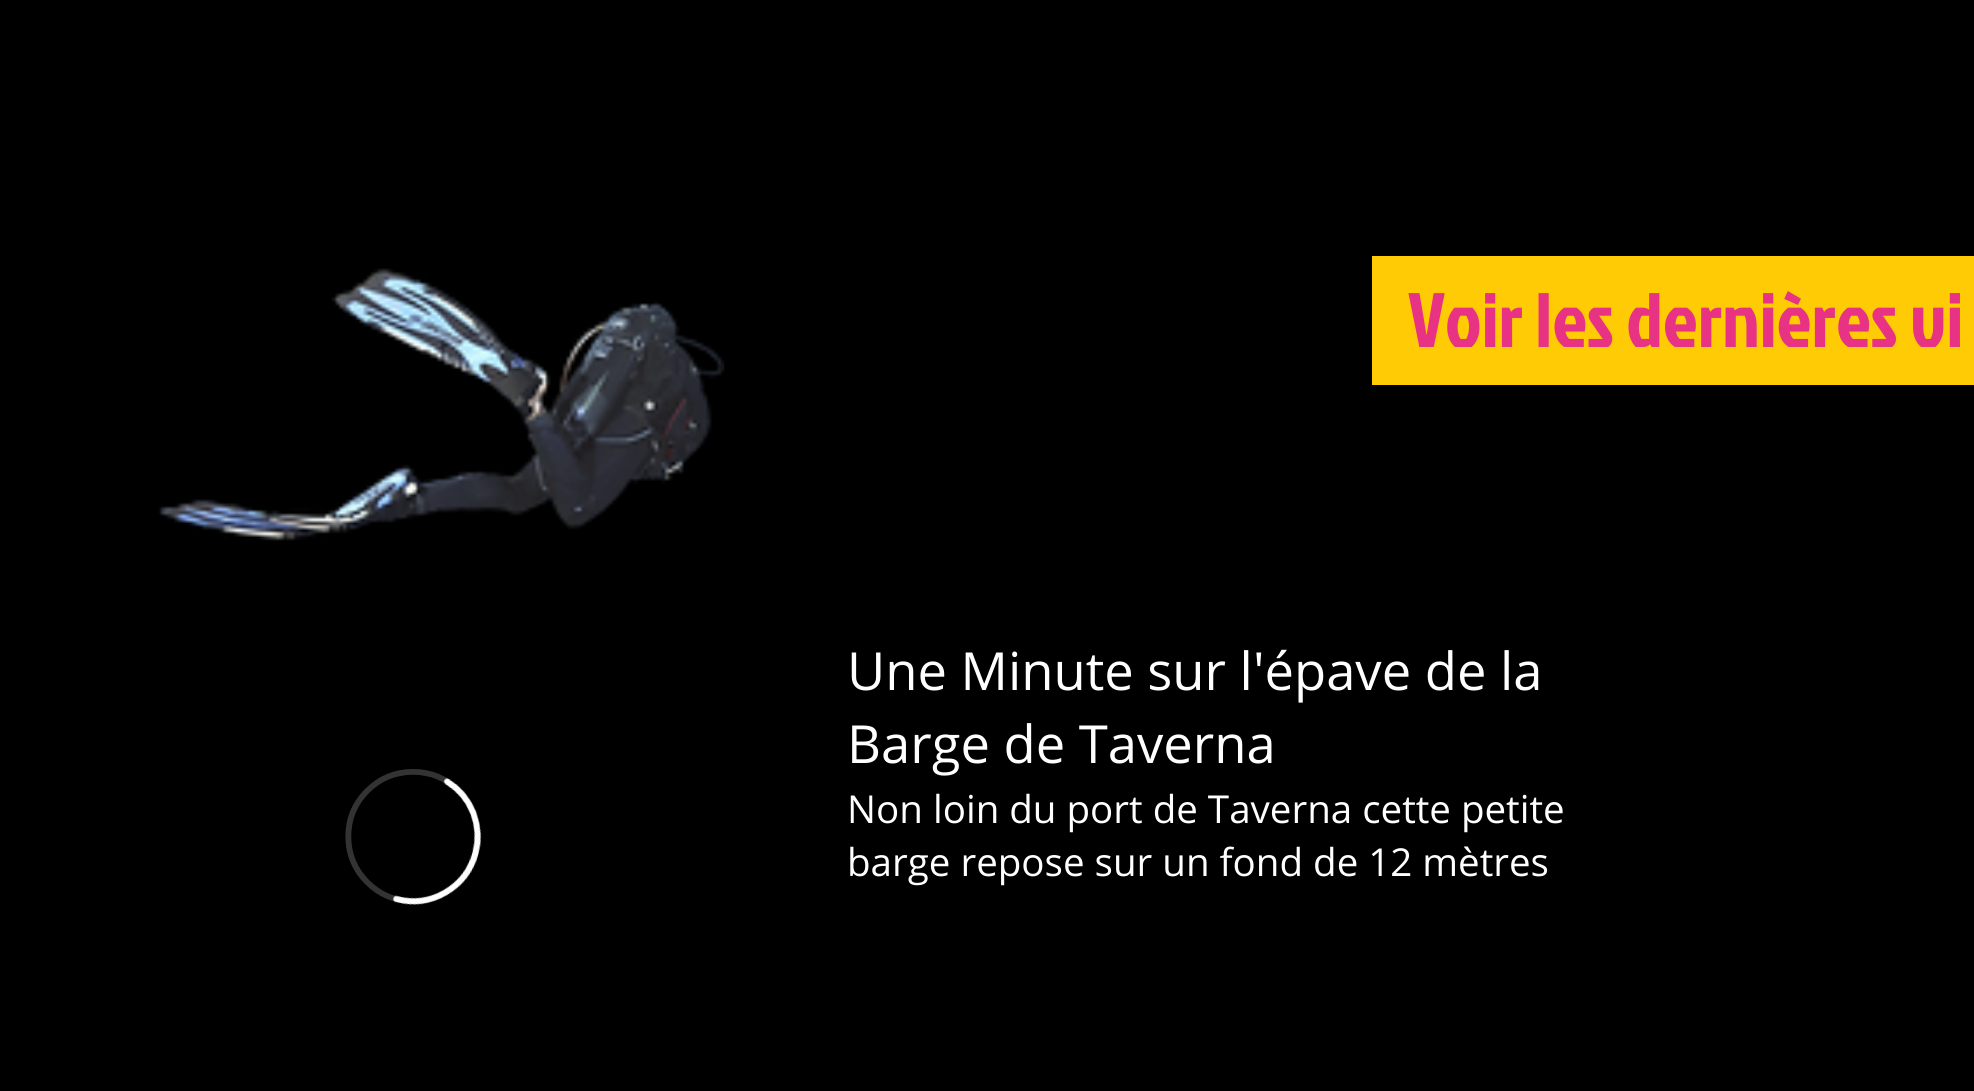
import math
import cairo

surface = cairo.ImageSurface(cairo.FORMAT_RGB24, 1974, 1091)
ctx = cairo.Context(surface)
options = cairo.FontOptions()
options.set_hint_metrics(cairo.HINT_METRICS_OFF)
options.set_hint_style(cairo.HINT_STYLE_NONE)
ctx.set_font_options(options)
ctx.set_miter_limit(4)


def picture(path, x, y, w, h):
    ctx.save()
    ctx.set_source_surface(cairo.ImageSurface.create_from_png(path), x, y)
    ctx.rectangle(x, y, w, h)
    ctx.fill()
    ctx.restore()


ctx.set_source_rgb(0, 0, 0)
ctx.paint()
picture("img1.png", 158, 268, 567, 273)
ctx.set_source_rgb(1, 0.796, 0.02)
ctx.rectangle(1372, 256, 602, 129)
ctx.fill()
ctx.select_font_face("Jockey One")
ctx.set_font_size(77)
ctx.set_source_rgb(0.91, 0.2, 0.518)
ctx.move_to(1408, 347)
ctx.show_text("Voir les dernières vi")
picture("img2.png", 21, 616, 784, 441)
ctx.select_font_face("Open Sans")
ctx.set_font_size(52.5)
ctx.set_source_rgb(1, 1, 1)
ctx.move_to(847, 690)
ctx.show_text("Une Minute sur l'épave de la")
ctx.move_to(847, 763)
ctx.show_text("Barge de Taverna")
ctx.set_font_size(38.5)
ctx.move_to(847, 823)
ctx.show_text("Non loin du port de Taverna cette petite")
ctx.move_to(847, 876)
ctx.show_text("barge repose sur un fond de 12 mètres")
surface.write_to_png("page.png")
